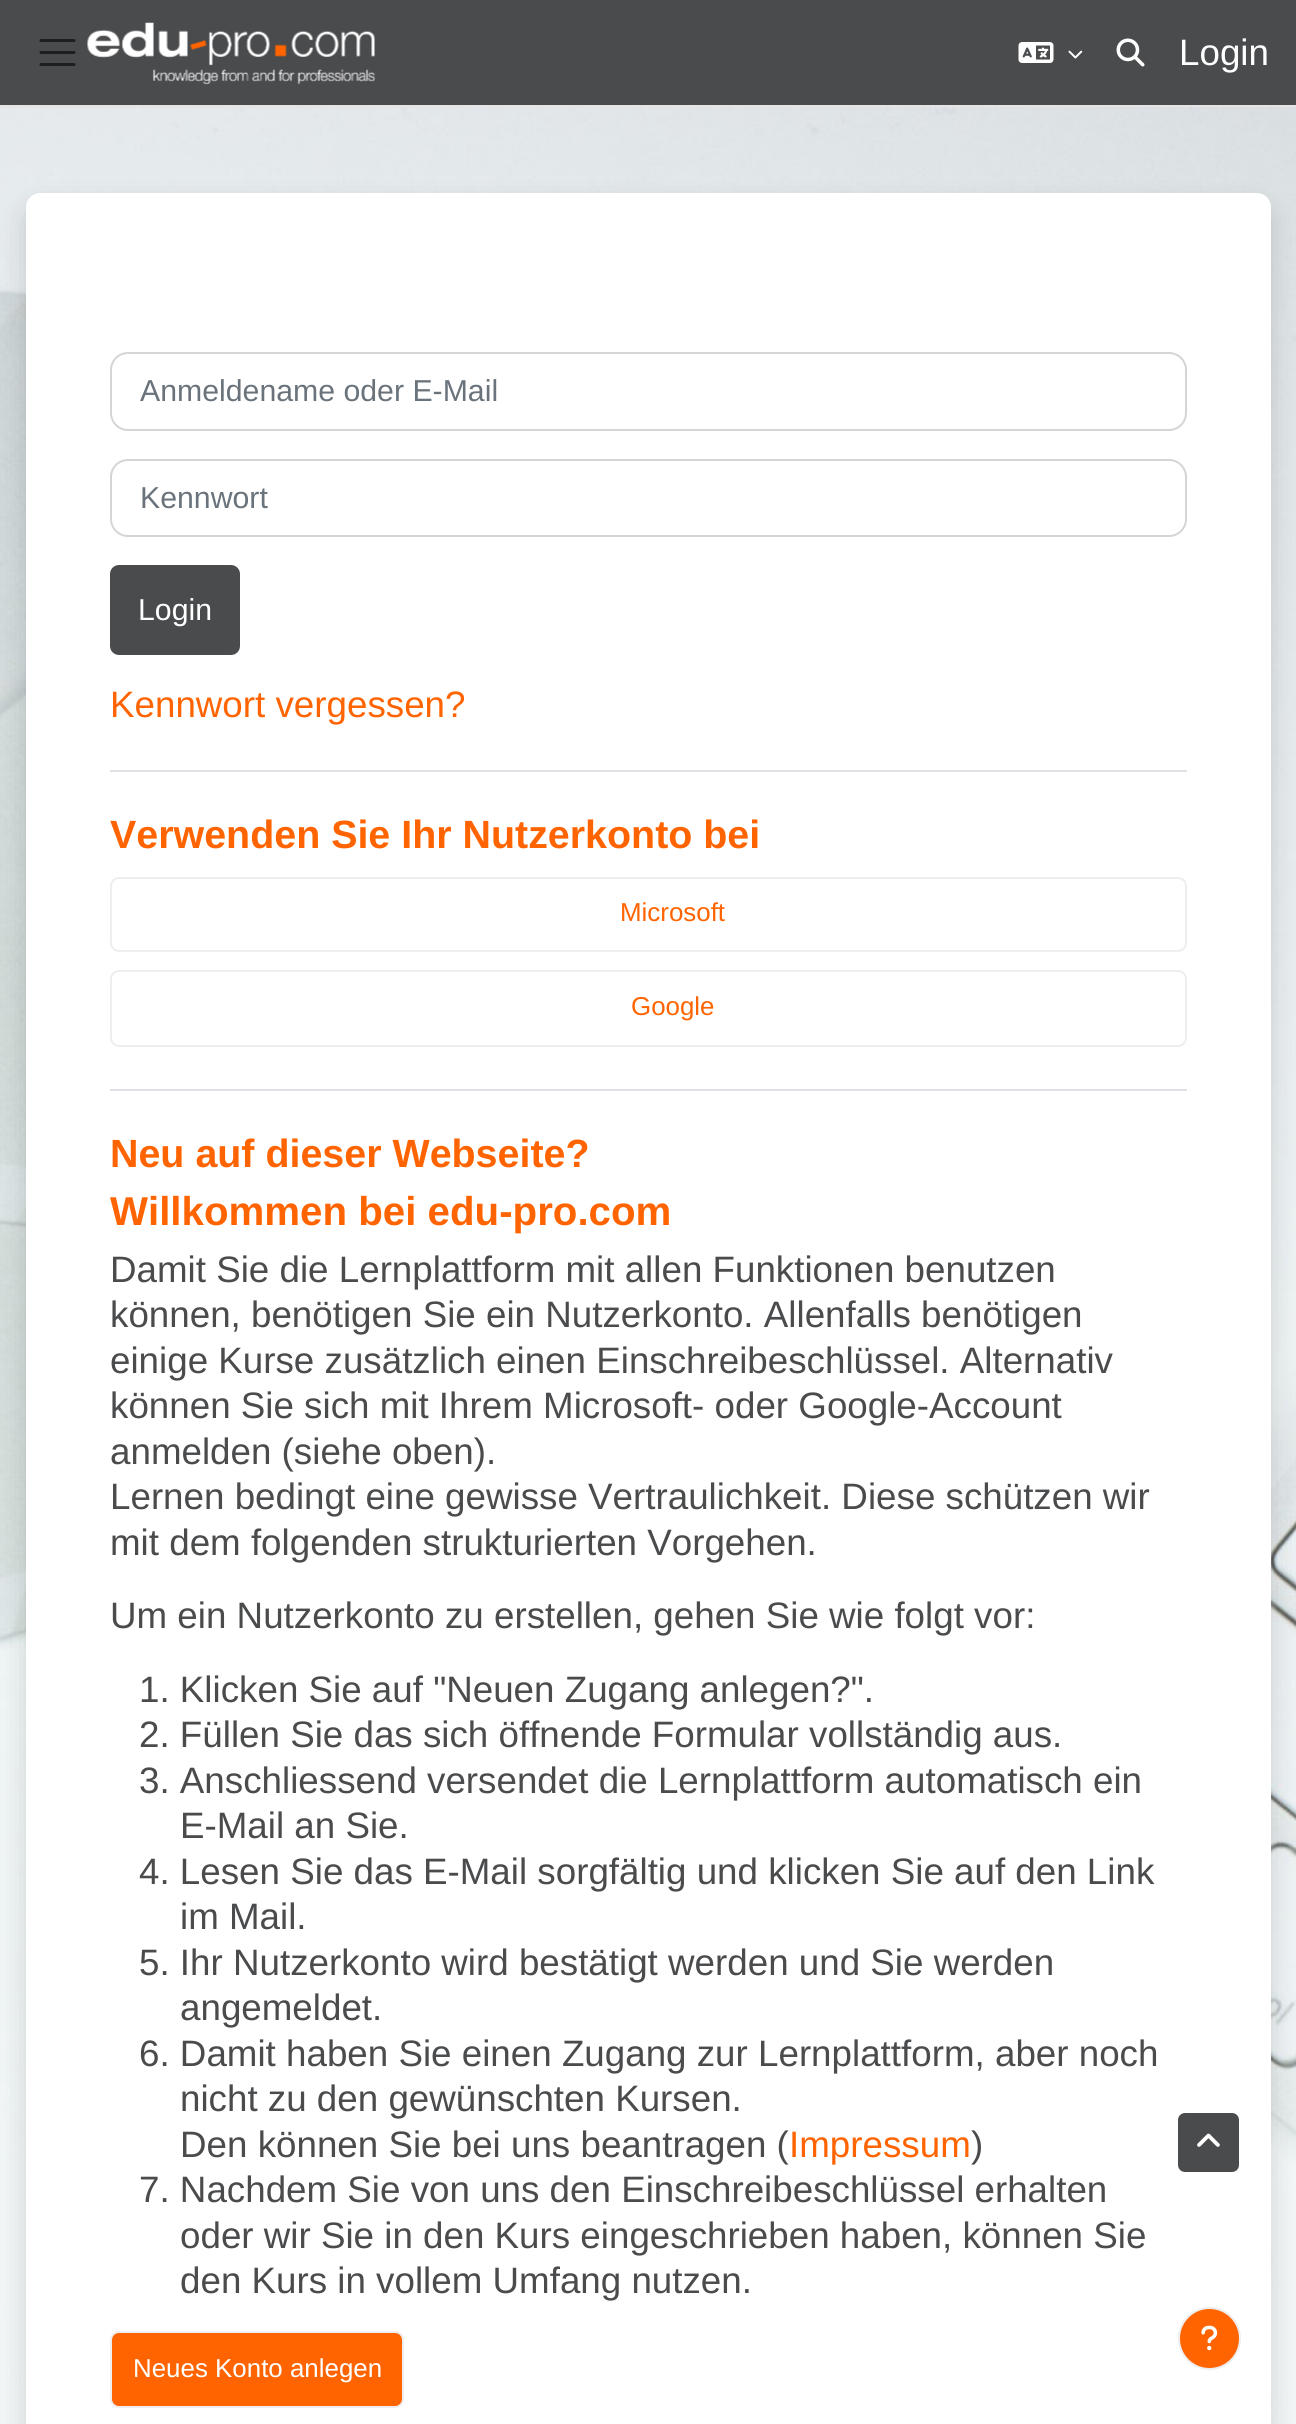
import math
import cairo

surface = cairo.ImageSurface(cairo.FORMAT_RGB24, 1296, 2424)
ctx = cairo.Context(surface)
options = cairo.FontOptions()
options.set_hint_metrics(cairo.HINT_METRICS_OFF)
options.set_hint_style(cairo.HINT_STYLE_NONE)
ctx.set_font_options(options)
ctx.set_miter_limit(4)


def round_rect(x, y, w, h, r):
    ctx.new_sub_path()
    for i, (u, v) in enumerate([(x + w - r, y + h - r), (x + r, y + h - r), (x + r, y + r), (x + w - r, y + r)]):
        ctx.arc(u, v, r, i * math.pi / 2, (i + 1) * math.pi / 2)
    ctx.close_path()


def shadow(x, y, w, h, r, blur, alpha):
    ctx.push_group_with_content(cairo.CONTENT_ALPHA)
    ctx.set_operator(cairo.OPERATOR_SOURCE)
    for i in range(15, -16, -2):
        e = blur * i / 6
        if min(w, h) + 2 * e > 0:
            ctx.set_source_rgba(0, 0, 0, alpha * math.erfc((i - 1) / 8.5) / 2)
            round_rect(x - e, y - e, w + 2 * e, h + 2 * e, max(0, min(r + e + blur * .6, min(w, h) / 2 + e)))
            ctx.fill()
    ctx.mask(ctx.pop_group())


def picture(path, x, y, w, h):
    ctx.save()
    ctx.set_source_surface(cairo.ImageSurface.create_from_png(path), x, y)
    ctx.rectangle(x, y, w, h)
    ctx.fill()
    ctx.restore()


ctx.set_source_rgb(1, 1, 1)
ctx.paint()
ctx.set_source_rgb(0.29, 0.294, 0.302)
ctx.rectangle(0, 0, 1296, 105)
ctx.fill()
ctx.set_source_rgb(0.91, 0.89, 0.89)
ctx.rectangle(0, 105, 1296, 2)
ctx.fill()
ctx.new_path()
ctx.move_to(41, 40.5)
ctx.line_to(74, 40.5)
ctx.move_to(41, 52.5)
ctx.line_to(74, 52.5)
ctx.move_to(41, 64.5)
ctx.line_to(74, 64.5)
ctx.set_source_rgb(0.118, 0.118, 0.122)
ctx.set_line_width(3)
ctx.set_line_cap(cairo.LINE_CAP_ROUND)
ctx.stroke()
picture("img1.png", 87, 22, 288, 63)
picture("img2.png", 1018, 42, 36, 21)
picture("img3.png", 1068, 50, 15, 9)
picture("img4.png", 1116, 38, 29, 29)
ctx.select_font_face("Liberation Sans")
ctx.set_font_size(36.75)
ctx.set_source_rgb(1, 1, 1)
ctx.move_to(1179, 65)
ctx.show_text("Login")
picture("img5.png", 0, 107, 1296, 2317)
ctx.set_source_rgb(0, 0, 0)
shadow(26, 207, 1245, 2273, 14, 14, 0.15)
ctx.set_source_rgb(1, 1, 1)
round_rect(26, 193, 1245, 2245, 14)
ctx.fill()
round_rect(111, 353, 1075, 77, 17)
ctx.set_source_rgb(0.835, 0.835, 0.835)
ctx.set_line_width(2)
ctx.set_line_cap(cairo.LINE_CAP_BUTT)
ctx.stroke()
ctx.set_font_size(30.25)
ctx.set_source_rgb(0.416, 0.451, 0.482)
ctx.move_to(140, 401)
ctx.show_text("Anmeldename oder E-Mail")
round_rect(111, 460, 1075, 76, 17)
ctx.set_source_rgb(0.835, 0.835, 0.835)
ctx.stroke()
ctx.set_source_rgb(0.416, 0.451, 0.482)
ctx.move_to(140, 508)
ctx.show_text("Kennwort")
ctx.set_source_rgb(0.29, 0.294, 0.302)
round_rect(110, 565, 130, 90, 9)
ctx.fill()
ctx.set_source_rgb(1, 1, 1)
ctx.move_to(138, 620)
ctx.show_text("Login")
ctx.set_font_size(36.75)
ctx.set_source_rgb(1, 0.392, 0)
ctx.move_to(110, 717)
ctx.show_text("Kennwort vergessen?")
ctx.set_source_rgb(0.871, 0.886, 0.902)
ctx.rectangle(110, 770, 1077, 2)
ctx.fill()
ctx.select_font_face("Liberation Sans", cairo.FONT_SLANT_NORMAL, cairo.FONT_WEIGHT_BOLD)
ctx.set_font_size(39.4)
ctx.set_source_rgb(1, 0.392, 0)
ctx.move_to(110, 848)
ctx.show_text("Verwenden Sie Ihr Nutzerkonto bei")
round_rect(111, 878, 1075, 73, 8)
ctx.set_source_rgb(0.933, 0.933, 0.933)
ctx.stroke()
ctx.select_font_face("Liberation Sans")
ctx.set_font_size(25.9)
ctx.set_source_rgb(1, 0.392, 0)
ctx.move_to(620, 921)
ctx.show_text("Microsoft")
round_rect(111, 971, 1075, 75, 8)
ctx.set_source_rgb(0.933, 0.933, 0.933)
ctx.stroke()
ctx.set_source_rgb(1, 0.392, 0)
ctx.move_to(631, 1015)
ctx.show_text("Google")
ctx.set_source_rgb(0.871, 0.886, 0.902)
ctx.rectangle(110, 1089, 1077, 2)
ctx.fill()
ctx.select_font_face("Liberation Sans", cairo.FONT_SLANT_NORMAL, cairo.FONT_WEIGHT_BOLD)
ctx.set_font_size(39.4)
ctx.set_source_rgb(1, 0.392, 0)
ctx.move_to(110, 1167)
ctx.show_text("Neu auf dieser Webseite?")
ctx.set_font_size(40.25)
ctx.move_to(110, 1225)
ctx.show_text("Willkommen bei edu-pro.com")
ctx.select_font_face("Liberation Sans")
ctx.set_font_size(36.75)
ctx.set_source_rgb(0.29, 0.294, 0.302)
ctx.move_to(110, 1282)
ctx.show_text("Damit Sie die Lernplattform mit allen Funktionen benutzen")
ctx.move_to(110, 1327)
ctx.show_text("können, benötigen Sie ein Nutzerkonto. Allenfalls benötigen")
ctx.move_to(110, 1373)
ctx.show_text("einige Kurse zusätzlich einen Einschreibeschlüssel. Alternativ")
ctx.move_to(110, 1418)
ctx.show_text("können Sie sich mit Ihrem Microsoft- oder Google-Account")
ctx.move_to(110, 1464)
ctx.show_text("anmelden (siehe oben).")
ctx.move_to(110, 1509)
ctx.show_text("Lernen bedingt eine gewisse Vertraulichkeit. Diese schützen wir")
ctx.move_to(110, 1555)
ctx.show_text("mit dem folgenden strukturierten Vorgehen.")
ctx.move_to(110, 1628)
ctx.show_text("Um ein Nutzerkonto zu erstellen, gehen Sie wie folgt vor:")
ctx.move_to(139, 1702)
ctx.show_text("1. Klicken Sie auf \"Neuen Zugang anlegen?\".")
ctx.move_to(139, 1747)
ctx.show_text("2. Füllen Sie das sich öffnende Formular vollständig aus.")
ctx.move_to(139, 1793)
ctx.show_text("3. Anschliessend versendet die Lernplattform automatisch ein")
ctx.move_to(180, 1838)
ctx.show_text("E-Mail an Sie.")
ctx.move_to(139, 1884)
ctx.show_text("4. Lesen Sie das E-Mail sorgfältig und klicken Sie auf den Link")
ctx.move_to(180, 1929)
ctx.show_text("im Mail.")
ctx.move_to(139, 1975)
ctx.show_text("5. Ihr Nutzerkonto wird bestätigt werden und Sie werden")
ctx.move_to(180, 2020)
ctx.show_text("angemeldet.")
ctx.move_to(139, 2066)
ctx.show_text("6. Damit haben Sie einen Zugang zur Lernplattform, aber noch")
ctx.move_to(180, 2111)
ctx.show_text("nicht zu den gewünschten Kursen.")
ctx.move_to(180, 2157)
ctx.show_text("Den können Sie bei uns beantragen (")
ctx.set_source_rgb(1, 0.392, 0)
ctx.move_to(789, 2157)
ctx.show_text("Impressum")
ctx.set_source_rgb(0.29, 0.294, 0.302)
ctx.move_to(971, 2157)
ctx.show_text(")")
ctx.move_to(139, 2202)
ctx.show_text("7. Nachdem Sie von uns den Einschreibeschlüssel erhalten")
ctx.move_to(180, 2248)
ctx.show_text("oder wir Sie in den Kurs eingeschrieben haben, können Sie")
ctx.move_to(180, 2293)
ctx.show_text("den Kurs in vollem Umfang nutzen.")
ctx.set_source_rgb(1, 0.392, 0)
round_rect(111, 2332, 292, 75, 8)
ctx.fill_preserve()
ctx.set_source_rgb(0.933, 0.933, 0.933)
ctx.stroke()
ctx.set_font_size(25.9)
ctx.set_source_rgb(1, 1, 1)
ctx.move_to(133, 2377)
ctx.show_text("Neues Konto anlegen")
ctx.set_source_rgb(0.29, 0.294, 0.302)
round_rect(1177, 2112, 63, 61, 8)
ctx.fill_preserve()
ctx.set_source_rgb(1, 1, 1)
ctx.stroke()
picture("img6.png", 1197, 2133, 23, 14)
ctx.set_source_rgb(1, 0.392, 0)
ctx.arc(1209.5, 2338.5, 30.5, 0, 2 * math.pi)
ctx.fill_preserve()
ctx.set_source_rgb(0.933, 0.933, 0.933)
ctx.stroke()
picture("img7.png", 1201, 2325, 17, 26)
surface.write_to_png("page.png")
